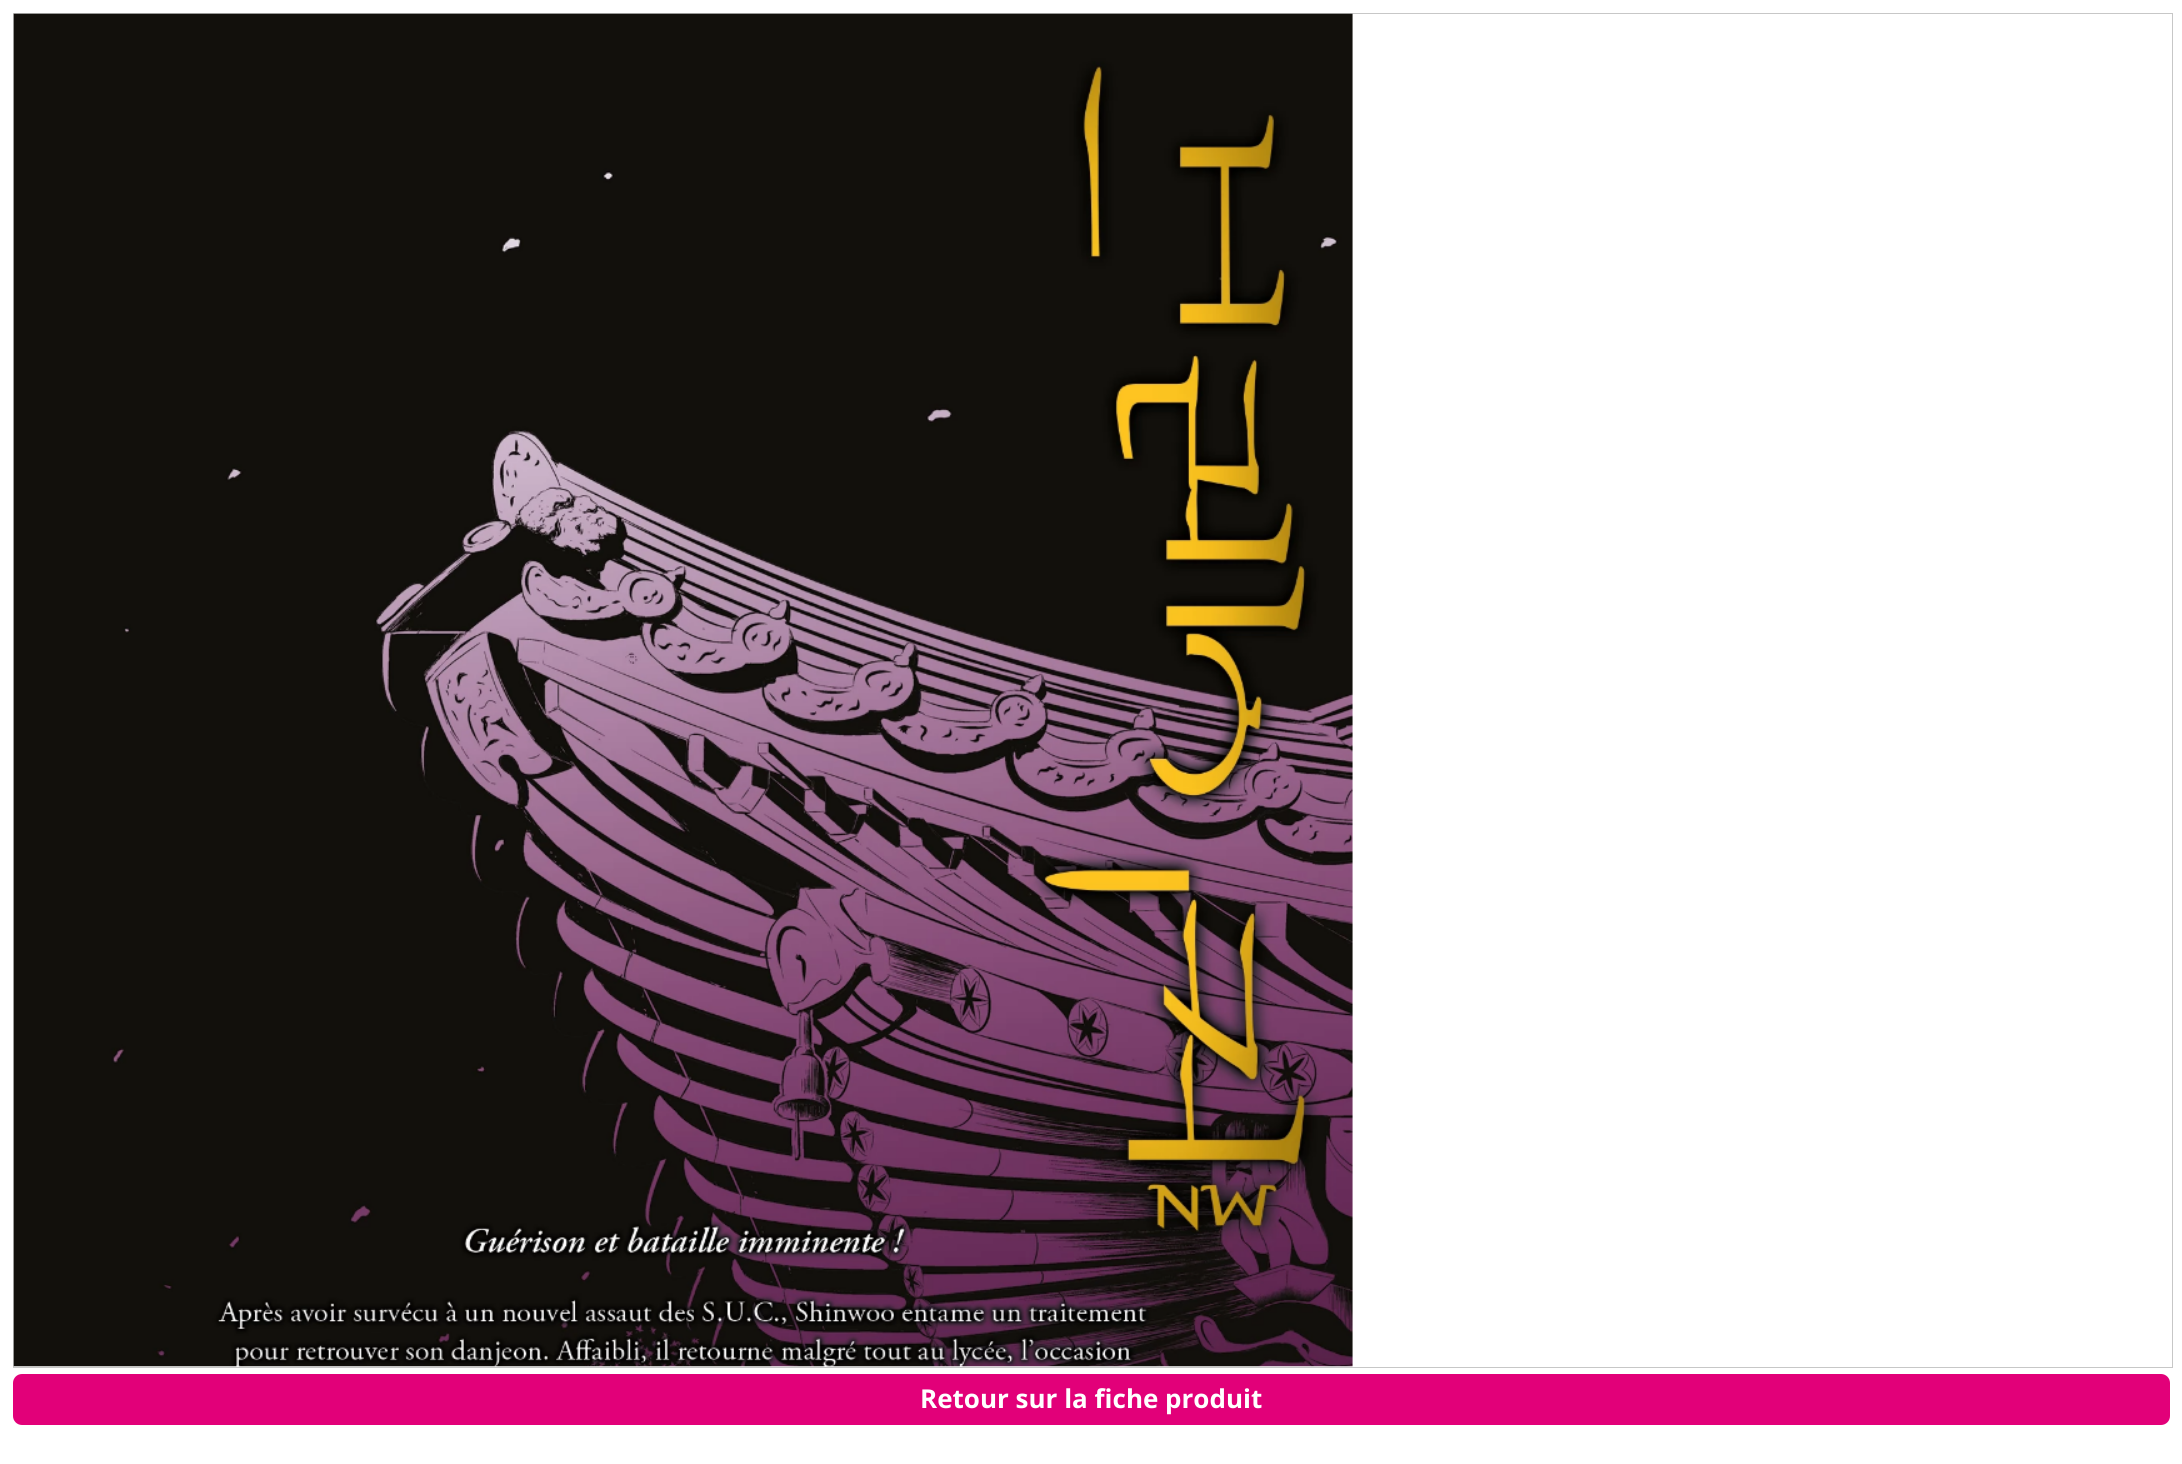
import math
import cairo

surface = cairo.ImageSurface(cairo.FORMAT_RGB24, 2182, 1464)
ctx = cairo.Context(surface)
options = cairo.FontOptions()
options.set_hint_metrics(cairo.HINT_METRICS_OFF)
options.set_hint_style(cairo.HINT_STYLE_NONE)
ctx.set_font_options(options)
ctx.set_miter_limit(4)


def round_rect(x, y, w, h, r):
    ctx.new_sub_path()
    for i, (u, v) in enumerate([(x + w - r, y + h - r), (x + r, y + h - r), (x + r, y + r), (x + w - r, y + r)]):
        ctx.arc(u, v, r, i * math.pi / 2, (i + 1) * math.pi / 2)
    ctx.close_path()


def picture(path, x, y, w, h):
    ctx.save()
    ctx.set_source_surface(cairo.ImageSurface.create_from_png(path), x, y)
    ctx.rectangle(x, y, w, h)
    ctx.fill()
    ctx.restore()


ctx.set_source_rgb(1, 1, 1)
ctx.paint()
ctx.rectangle(13.5, 13.5, 2159, 1354)
ctx.set_source_rgb(0.78, 0.78, 0.78)
ctx.set_line_width(1)
ctx.stroke()
picture("img1.png", 13, 13, 1340, 1354)
ctx.set_source_rgb(0.886, 0, 0.475)
round_rect(13, 1374, 2157, 51, 9)
ctx.fill()
ctx.select_font_face("Open Sans", cairo.FONT_SLANT_NORMAL, cairo.FONT_WEIGHT_BOLD)
ctx.set_font_size(26)
ctx.set_source_rgb(1, 1, 1)
ctx.move_to(920, 1408)
ctx.show_text("Retour sur la fiche produit")
surface.write_to_png("page.png")
